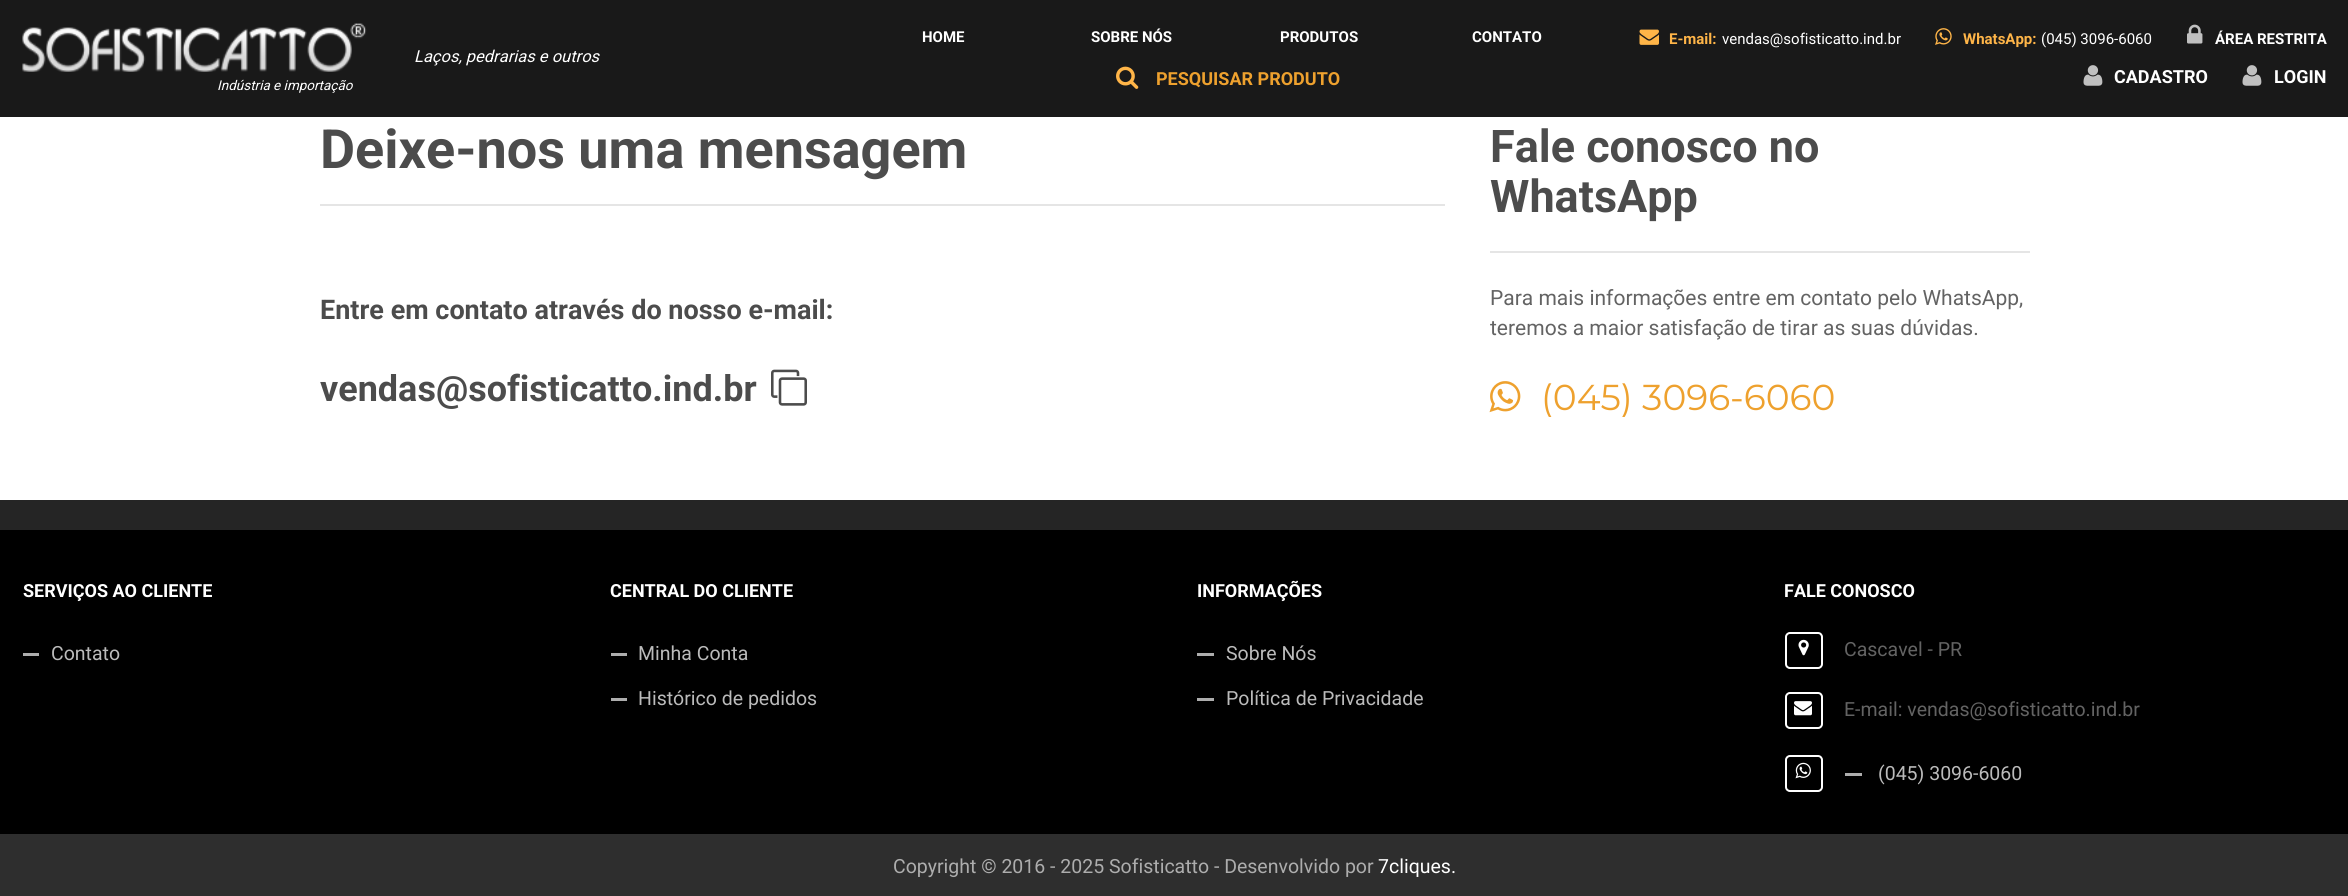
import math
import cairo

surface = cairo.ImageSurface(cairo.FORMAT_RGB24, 2348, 896)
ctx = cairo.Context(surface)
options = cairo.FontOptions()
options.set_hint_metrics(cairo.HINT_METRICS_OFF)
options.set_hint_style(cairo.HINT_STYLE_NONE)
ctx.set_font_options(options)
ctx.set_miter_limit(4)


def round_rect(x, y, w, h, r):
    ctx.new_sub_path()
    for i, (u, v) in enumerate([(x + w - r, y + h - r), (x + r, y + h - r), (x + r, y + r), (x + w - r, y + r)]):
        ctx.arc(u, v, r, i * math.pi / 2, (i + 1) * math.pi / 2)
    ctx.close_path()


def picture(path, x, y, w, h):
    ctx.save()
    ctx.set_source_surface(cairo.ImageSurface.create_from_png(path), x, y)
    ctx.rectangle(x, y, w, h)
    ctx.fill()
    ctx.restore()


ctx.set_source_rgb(1, 1, 1)
ctx.paint()
ctx.set_source_rgb(0.098, 0.098, 0.098)
ctx.rectangle(0, 0, 2348, 117)
ctx.fill()
picture("img1.png", 22, 23, 345, 49)
ctx.select_font_face("Roboto", cairo.FONT_SLANT_ITALIC)
ctx.set_font_size(13.5)
ctx.set_source_rgb(1, 1, 1)
ctx.move_to(217, 90)
ctx.show_text("Indústria e importação")
ctx.set_font_size(16.5)
ctx.move_to(414, 62)
ctx.show_text("Laços, pedrarias e outros")
ctx.select_font_face("Roboto", cairo.FONT_SLANT_NORMAL, cairo.FONT_WEIGHT_BOLD)
ctx.set_font_size(15)
ctx.move_to(922, 42)
ctx.show_text("HOME")
ctx.move_to(1091, 42)
ctx.show_text("SOBRE NÓS")
ctx.move_to(1280, 42)
ctx.show_text("PRODUTOS")
ctx.move_to(1472, 42)
ctx.show_text("CONTATO")
picture("img2.png", 1639, 29, 20, 16)
ctx.set_source_rgb(1, 0.71, 0.282)
ctx.move_to(1669, 44)
ctx.show_text("E-mail:")
ctx.select_font_face("Roboto")
ctx.set_source_rgb(1, 1, 1)
ctx.move_to(1722, 44)
ctx.show_text("vendas@sofisticatto.ind.br")
picture("img3.png", 1935, 28, 17, 17)
ctx.select_font_face("Roboto", cairo.FONT_SLANT_NORMAL, cairo.FONT_WEIGHT_BOLD)
ctx.set_source_rgb(1, 0.71, 0.282)
ctx.move_to(1963, 44)
ctx.show_text("WhatsApp:")
ctx.select_font_face("Roboto")
ctx.set_source_rgb(1, 1, 1)
ctx.move_to(2041, 44)
ctx.show_text("(045) 3096-6060")
picture("img4.png", 2187, 24, 16, 20)
ctx.select_font_face("Roboto", cairo.FONT_SLANT_NORMAL, cairo.FONT_WEIGHT_BOLD)
ctx.move_to(2215, 44)
ctx.show_text("ÁREA RESTRITA")
picture("img5.png", 2083, 65, 20, 21)
ctx.set_font_size(18)
ctx.move_to(2114, 83)
ctx.show_text("CADASTRO")
picture("img5.png", 2242, 65, 20, 21)
ctx.move_to(2274, 83)
ctx.show_text("LOGIN")
picture("img6.png", 1116, 66, 23, 23)
ctx.save()
ctx.rectangle(1157, 69, 474, 21)
ctx.clip()
ctx.set_source_rgb(0.933, 0.631, 0.18)
ctx.move_to(1156, 85)
ctx.show_text("PESQUISAR PRODUTO")
ctx.restore()
ctx.set_source_rgb(0.898, 0.898, 0.898)
ctx.rectangle(320, 204, 1125, 2)
ctx.fill()
ctx.set_font_size(54)
ctx.set_source_rgb(0.298, 0.298, 0.298)
ctx.move_to(320, 168)
ctx.show_text("Deixe-nos uma mensagem")
ctx.set_font_size(27)
ctx.move_to(320, 319)
ctx.show_text("Entre em contato através do nosso e-mail:")
ctx.set_font_size(36)
ctx.move_to(320, 401)
ctx.show_text("vendas@sofisticatto.ind.br")
picture("img7.png", 771, 369, 36, 37)
ctx.set_source_rgb(0.898, 0.898, 0.898)
ctx.rectangle(1490, 251, 540, 2)
ctx.fill()
ctx.set_font_size(45)
ctx.set_source_rgb(0.298, 0.298, 0.298)
ctx.move_to(1490, 162)
ctx.show_text("Fale conosco no")
ctx.move_to(1490, 212)
ctx.show_text("WhatsApp")
ctx.select_font_face("Roboto")
ctx.set_font_size(21)
ctx.set_source_rgb(0.388, 0.388, 0.388)
ctx.move_to(1490, 305)
ctx.show_text("Para mais informações entre em contato pelo WhatsApp,")
ctx.move_to(1490, 335)
ctx.show_text("teremos a maior satisfação de tirar as suas dúvidas.")
picture("img8.png", 1489, 381, 32, 32)
ctx.select_font_face("Montserrat")
ctx.set_font_size(36)
ctx.set_source_rgb(0.933, 0.631, 0.18)
ctx.move_to(1541, 410)
ctx.show_text("(045) 3096-6060")
ctx.set_source_rgb(0.145, 0.145, 0.145)
ctx.rectangle(0, 500, 2348, 30)
ctx.fill()
ctx.set_source_rgb(0, 0, 0)
ctx.rectangle(0, 530, 2348, 304)
ctx.fill()
ctx.select_font_face("Roboto", cairo.FONT_SLANT_NORMAL, cairo.FONT_WEIGHT_BOLD)
ctx.set_font_size(18)
ctx.set_source_rgb(1, 1, 1)
ctx.move_to(23, 597)
ctx.show_text("SERVIÇOS AO CLIENTE")
ctx.set_source_rgb(0.678, 0.678, 0.678)
ctx.rectangle(23, 653, 16, 3)
ctx.fill()
ctx.select_font_face("Roboto")
ctx.set_font_size(19.5)
ctx.set_source_rgb(0.733, 0.733, 0.733)
ctx.move_to(51, 660)
ctx.show_text("Contato")
ctx.select_font_face("Roboto", cairo.FONT_SLANT_NORMAL, cairo.FONT_WEIGHT_BOLD)
ctx.set_font_size(18)
ctx.set_source_rgb(1, 1, 1)
ctx.move_to(610, 597)
ctx.show_text("CENTRAL DO CLIENTE")
ctx.set_source_rgb(0.678, 0.678, 0.678)
ctx.rectangle(611, 653, 16, 3)
ctx.fill()
ctx.select_font_face("Roboto")
ctx.set_font_size(19.5)
ctx.set_source_rgb(0.733, 0.733, 0.733)
ctx.move_to(638, 660)
ctx.show_text("Minha Conta")
ctx.set_source_rgb(0.678, 0.678, 0.678)
ctx.rectangle(611, 698, 16, 3)
ctx.fill()
ctx.set_source_rgb(0.733, 0.733, 0.733)
ctx.move_to(638, 705)
ctx.show_text("Histórico de pedidos")
ctx.select_font_face("Roboto", cairo.FONT_SLANT_NORMAL, cairo.FONT_WEIGHT_BOLD)
ctx.set_font_size(18)
ctx.set_source_rgb(1, 1, 1)
ctx.move_to(1197, 597)
ctx.show_text("INFORMAÇÕES")
ctx.set_source_rgb(0.678, 0.678, 0.678)
ctx.rectangle(1197, 653, 17, 3)
ctx.fill()
ctx.select_font_face("Roboto")
ctx.set_font_size(19.5)
ctx.set_source_rgb(0.733, 0.733, 0.733)
ctx.move_to(1226, 660)
ctx.show_text("Sobre Nós")
ctx.set_source_rgb(0.678, 0.678, 0.678)
ctx.rectangle(1197, 698, 17, 3)
ctx.fill()
ctx.set_source_rgb(0.733, 0.733, 0.733)
ctx.move_to(1226, 705)
ctx.show_text("Política de Privacidade")
ctx.select_font_face("Roboto", cairo.FONT_SLANT_NORMAL, cairo.FONT_WEIGHT_BOLD)
ctx.set_font_size(18)
ctx.set_source_rgb(1, 1, 1)
ctx.move_to(1784, 597)
ctx.show_text("FALE CONOSCO")
round_rect(1786, 633, 36, 35, 4)
ctx.stroke()
picture("img9.png", 1798, 639, 11, 17)
ctx.select_font_face("Roboto")
ctx.set_font_size(19.5)
ctx.set_source_rgb(0.388, 0.388, 0.388)
ctx.move_to(1844, 656)
ctx.show_text("Cascavel - PR")
round_rect(1786, 693, 36, 35, 4)
ctx.set_source_rgb(1, 1, 1)
ctx.stroke()
picture("img10.png", 1794, 701, 18, 15)
ctx.set_source_rgb(0.388, 0.388, 0.388)
ctx.move_to(1844, 716)
ctx.show_text("E-mail: vendas@sofisticatto.ind.br")
round_rect(1786, 756, 36, 35, 4)
ctx.set_source_rgb(1, 1, 1)
ctx.stroke()
picture("img11.png", 1795, 762, 16, 17)
ctx.set_source_rgb(0.678, 0.678, 0.678)
ctx.rectangle(1845, 773, 17, 3)
ctx.fill()
ctx.set_source_rgb(0.733, 0.733, 0.733)
ctx.move_to(1878, 780)
ctx.show_text("(045) 3096-6060")
ctx.set_source_rgb(0.18, 0.18, 0.18)
ctx.rectangle(0, 834, 2348, 62)
ctx.fill()
ctx.set_source_rgb(0.678, 0.678, 0.678)
ctx.move_to(893, 873)
ctx.show_text("Copyright © 2016 - 2025 Sofisticatto - Desenvolvido por")
ctx.set_source_rgb(1, 1, 1)
ctx.move_to(1378, 873)
ctx.show_text("7cliques.")
surface.write_to_png("page.png")
